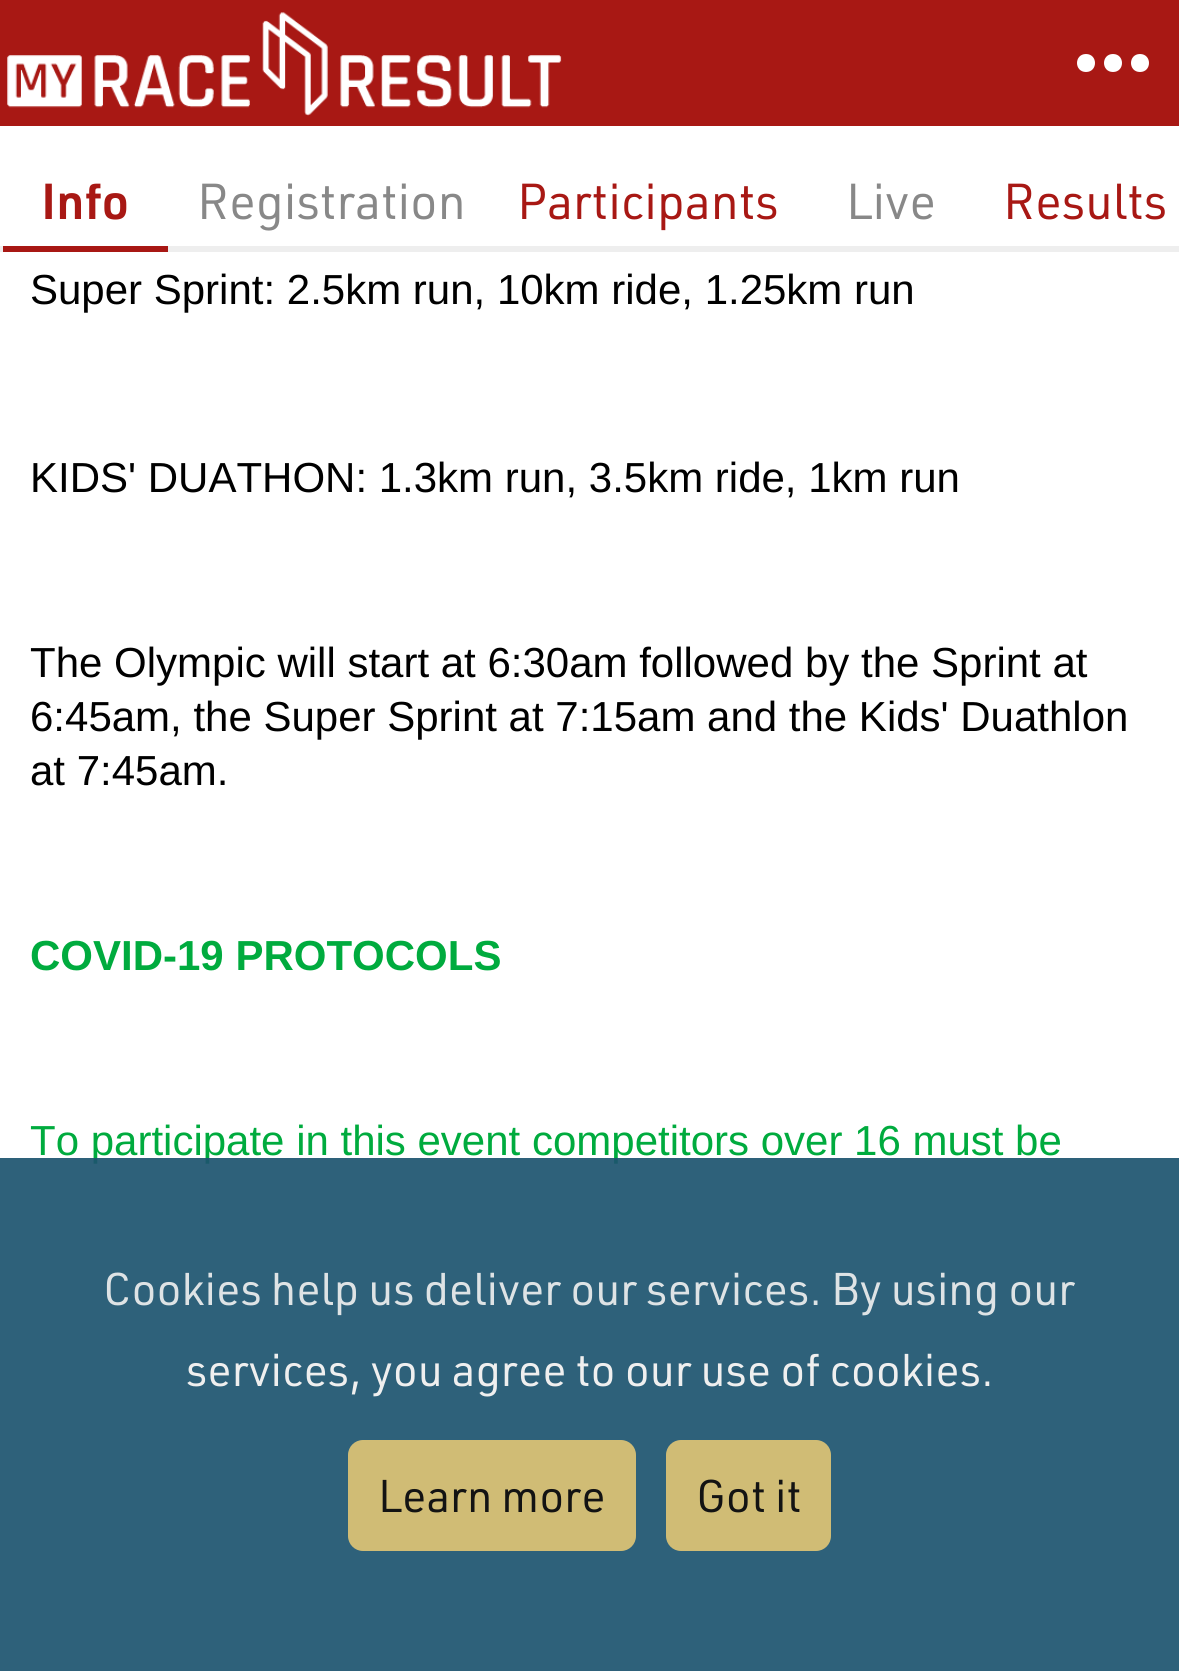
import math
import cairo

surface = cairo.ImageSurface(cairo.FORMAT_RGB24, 1179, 1671)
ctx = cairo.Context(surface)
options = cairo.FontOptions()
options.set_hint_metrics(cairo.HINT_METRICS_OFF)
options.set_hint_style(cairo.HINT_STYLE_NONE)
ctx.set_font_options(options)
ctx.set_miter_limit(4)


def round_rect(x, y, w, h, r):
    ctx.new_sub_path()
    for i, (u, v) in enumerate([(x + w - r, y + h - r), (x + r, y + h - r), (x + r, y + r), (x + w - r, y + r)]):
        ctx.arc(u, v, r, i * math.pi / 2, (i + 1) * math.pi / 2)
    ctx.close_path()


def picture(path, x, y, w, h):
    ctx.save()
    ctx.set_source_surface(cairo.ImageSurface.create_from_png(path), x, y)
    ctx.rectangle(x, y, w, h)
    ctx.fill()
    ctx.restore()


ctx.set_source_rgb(1, 1, 1)
ctx.paint()
ctx.set_source_rgb(0.659, 0.094, 0.082)
ctx.rectangle(0, 0, 1179, 126)
ctx.fill()
picture("img1.png", 7, 12, 555, 104)
ctx.set_source_rgb(1, 1, 1)
ctx.new_path()
ctx.move_to(1086, 54)
ctx.curve_to(1074, 54, 1074, 72, 1086, 72)
ctx.curve_to(1098, 72, 1098, 54, 1086, 54)
ctx.close_path()
ctx.move_to(1140, 54)
ctx.curve_to(1128, 54, 1128, 72, 1140, 72)
ctx.curve_to(1152, 72, 1152, 54, 1140, 54)
ctx.close_path()
ctx.move_to(1113, 54)
ctx.curve_to(1101, 54, 1101, 72, 1113, 72)
ctx.curve_to(1125, 72, 1125, 54, 1113, 54)
ctx.close_path()
ctx.fill()
ctx.set_source_rgb(0.933, 0.933, 0.933)
ctx.rectangle(0, 246, 1179, 6)
ctx.fill()
ctx.set_source_rgb(0.659, 0.094, 0.082)
ctx.rectangle(3, 246, 165, 6)
ctx.fill()
ctx.select_font_face("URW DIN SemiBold")
ctx.set_font_size(49.5)
ctx.move_to(41, 219)
ctx.show_text("Info")
ctx.select_font_face("URW DIN")
ctx.set_source_rgb(0.533, 0.533, 0.533)
ctx.move_to(197, 219)
ctx.show_text("Registration")
ctx.set_source_rgb(0.659, 0.094, 0.082)
ctx.move_to(517, 219)
ctx.show_text("Participants")
ctx.set_source_rgb(0.533, 0.533, 0.533)
ctx.move_to(846, 219)
ctx.show_text("Live")
ctx.set_source_rgb(0.659, 0.094, 0.082)
ctx.move_to(1003, 219)
ctx.show_text("Results")
ctx.select_font_face("Liberation Sans")
ctx.set_font_size(42)
ctx.set_source_rgb(0, 0, 0)
ctx.move_to(30, 304)
ctx.show_text("Super Sprint: 2.5km run, 10km ride, 1.25km run")
ctx.move_to(30, 492)
ctx.show_text("KIDS' DUATHON: 1.3km run, 3.5km ride, 1km run")
ctx.move_to(30, 677)
ctx.show_text("The Olympic will start at 6:30am followed by the Sprint at")
ctx.move_to(30, 731)
ctx.show_text("6:45am, the Super Sprint at 7:15am and the Kids' Duathlon")
ctx.move_to(30, 785)
ctx.show_text("at 7:45am.")
ctx.select_font_face("Liberation Sans", cairo.FONT_SLANT_NORMAL, cairo.FONT_WEIGHT_BOLD)
ctx.set_source_rgb(0, 0.671, 0.243)
ctx.move_to(30, 970)
ctx.show_text("COVID-19 PROTOCOLS")
ctx.select_font_face("Liberation Sans")
ctx.move_to(30, 1155)
ctx.show_text("To participate in this event competitors over 16 must be")
ctx.set_source_rgba(0.114, 0.329, 0.435, 0.92)
ctx.rectangle(0, 1158, 1179, 513)
ctx.fill()
ctx.select_font_face("URW DIN")
ctx.set_font_size(45)
ctx.set_source_rgb(0.871, 0.89, 0.898)
ctx.move_to(103, 1305)
ctx.show_text("Cookies help us deliver our services. By using our")
ctx.set_source_rgb(0.937, 0.937, 0.937)
ctx.move_to(186, 1386)
ctx.show_text("services, you agree to our use of cookies.")
ctx.set_source_rgba(0.867, 0.765, 0.455, 0.92)
round_rect(348, 1440, 288, 111, 15)
ctx.fill()
ctx.set_source_rgb(0.078, 0.078, 0.078)
ctx.move_to(378, 1512)
ctx.show_text("Learn more")
ctx.set_source_rgba(0.867, 0.765, 0.455, 0.92)
round_rect(666, 1440, 165, 111, 15)
ctx.fill()
ctx.set_source_rgb(0.078, 0.078, 0.078)
ctx.move_to(696, 1512)
ctx.show_text("Got it")
surface.write_to_png("page.png")
